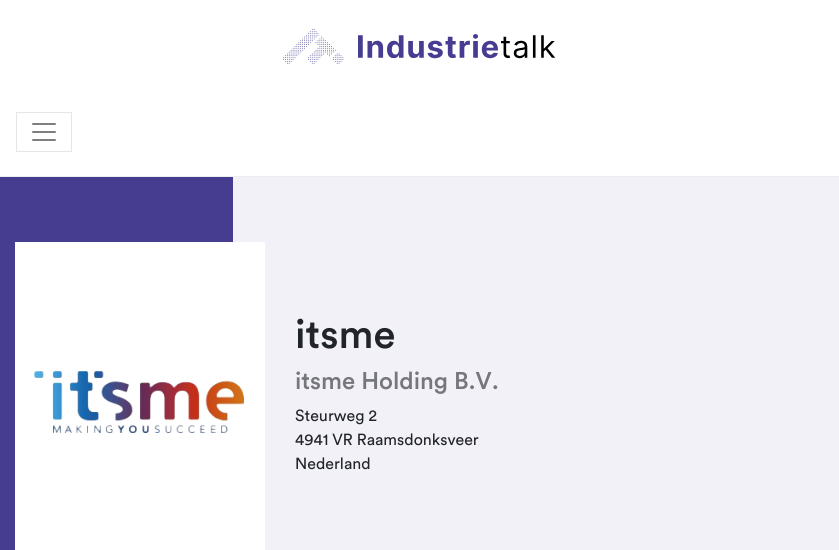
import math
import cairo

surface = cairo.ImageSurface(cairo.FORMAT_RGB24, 839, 550)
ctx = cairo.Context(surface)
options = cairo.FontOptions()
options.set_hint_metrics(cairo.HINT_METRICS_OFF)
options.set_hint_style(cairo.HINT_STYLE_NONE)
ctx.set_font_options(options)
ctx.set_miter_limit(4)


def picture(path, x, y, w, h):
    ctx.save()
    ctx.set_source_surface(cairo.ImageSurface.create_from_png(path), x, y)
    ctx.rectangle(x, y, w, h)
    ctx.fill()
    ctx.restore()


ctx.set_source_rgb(1, 1, 1)
ctx.paint()
ctx.set_source_rgb(0.929, 0.929, 0.929)
ctx.rectangle(0, 176, 839, 1)
ctx.fill()
picture("img1.png", 283, 29, 273, 35)
ctx.rectangle(16.5, 112.5, 55, 39)
ctx.set_source_rgb(0.902, 0.902, 0.902)
ctx.set_line_width(1)
ctx.stroke()
picture("img2.png", 32, 123, 24, 18)
ctx.set_source_rgb(0.949, 0.945, 0.969)
ctx.rectangle(233, 177, 606, 373)
ctx.fill()
ctx.set_source_rgb(0.275, 0.239, 0.569)
ctx.rectangle(0, 177, 233, 373)
ctx.fill()
ctx.set_source_rgb(1, 1, 1)
ctx.rectangle(15, 242, 250, 308)
ctx.fill()
picture("img3.png", 34, 371, 210, 62)
ctx.select_font_face("Circular Medium")
ctx.set_font_size(40)
ctx.set_source_rgb(0.129, 0.145, 0.161)
ctx.move_to(295, 348)
ctx.show_text("itsme")
ctx.set_font_size(24)
ctx.set_source_rgb(0.459, 0.467, 0.482)
ctx.move_to(295, 389)
ctx.show_text("itsme Holding B.V.")
ctx.select_font_face("Circular")
ctx.set_font_size(16)
ctx.set_source_rgb(0.129, 0.145, 0.161)
ctx.move_to(295, 421)
ctx.show_text("Steurweg 2")
ctx.move_to(295, 445)
ctx.show_text("4941 VR Raamsdonksveer")
ctx.move_to(295, 469)
ctx.show_text("Nederland")
surface.write_to_png("page.png")
